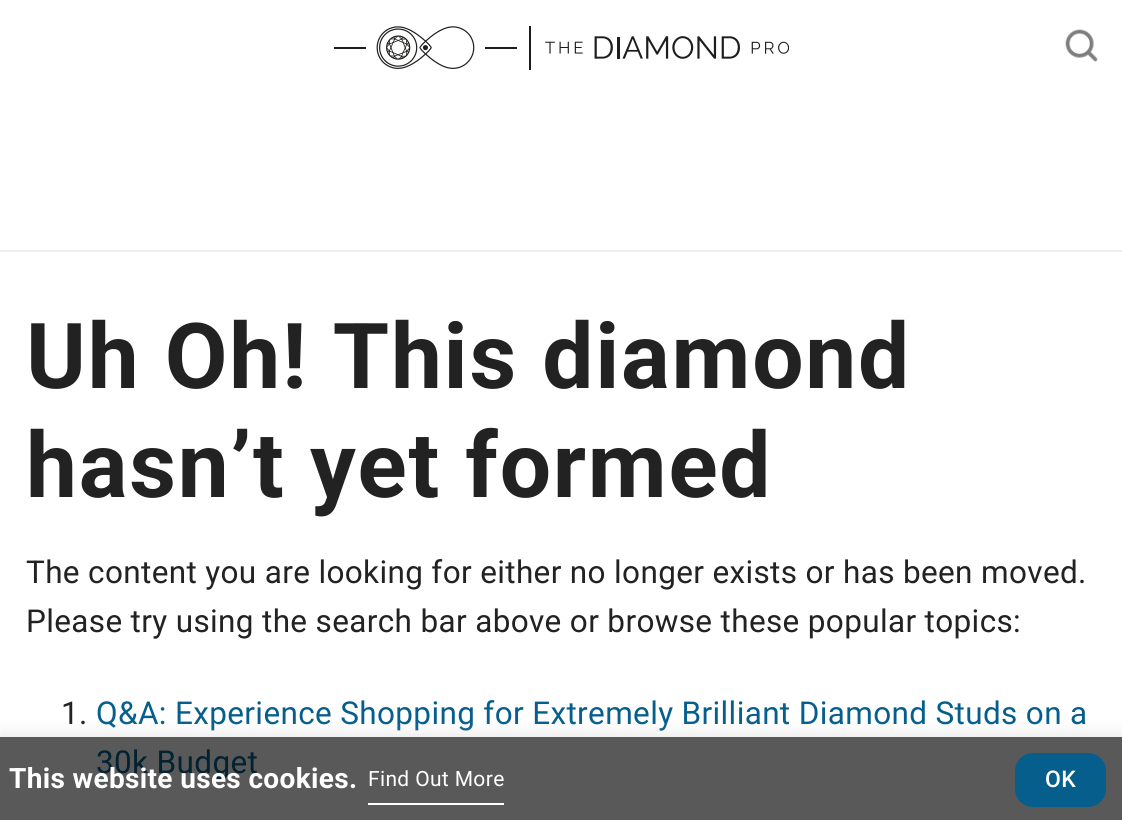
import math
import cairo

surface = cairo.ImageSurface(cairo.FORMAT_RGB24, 1122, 820)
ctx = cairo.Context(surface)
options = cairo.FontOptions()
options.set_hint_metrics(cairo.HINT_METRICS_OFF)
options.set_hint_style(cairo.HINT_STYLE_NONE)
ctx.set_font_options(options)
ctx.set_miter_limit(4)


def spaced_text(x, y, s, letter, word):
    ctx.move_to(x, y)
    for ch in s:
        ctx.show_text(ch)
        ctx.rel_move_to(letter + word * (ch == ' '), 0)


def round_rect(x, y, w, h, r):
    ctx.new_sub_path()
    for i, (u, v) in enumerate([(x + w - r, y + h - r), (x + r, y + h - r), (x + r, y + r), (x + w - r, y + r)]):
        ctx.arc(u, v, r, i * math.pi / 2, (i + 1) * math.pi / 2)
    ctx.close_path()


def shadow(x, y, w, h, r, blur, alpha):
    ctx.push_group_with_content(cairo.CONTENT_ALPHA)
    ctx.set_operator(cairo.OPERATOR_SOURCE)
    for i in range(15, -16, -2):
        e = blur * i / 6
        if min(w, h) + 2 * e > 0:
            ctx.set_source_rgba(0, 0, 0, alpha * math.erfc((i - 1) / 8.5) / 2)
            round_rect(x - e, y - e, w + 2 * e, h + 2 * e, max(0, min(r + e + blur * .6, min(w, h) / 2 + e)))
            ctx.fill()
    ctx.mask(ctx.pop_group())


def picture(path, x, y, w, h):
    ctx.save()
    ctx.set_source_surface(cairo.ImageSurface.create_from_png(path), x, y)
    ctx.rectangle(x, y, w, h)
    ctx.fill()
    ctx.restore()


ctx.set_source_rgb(1, 1, 1)
ctx.paint()
ctx.set_source_rgb(0.349, 0.349, 0.349)
ctx.rectangle(0, 737, 1122, 83)
ctx.fill()
picture("img1.png", 334, 26, 455, 44)
picture("img2.png", 1065, 29, 33, 33)
ctx.set_source_rgb(0.933, 0.933, 0.933)
ctx.rectangle(0, 250, 1122, 2)
ctx.fill()
ctx.select_font_face("Roboto", cairo.FONT_SLANT_NORMAL, cairo.FONT_WEIGHT_BOLD)
ctx.set_font_size(91)
ctx.set_source_rgb(0.133, 0.133, 0.133)
spaced_text(26, 388, "Uh Oh! This diamond", 1.75, 0)
spaced_text(26, 497, "hasn’t yet formed", 1.75, 0)
ctx.select_font_face("Roboto")
ctx.set_font_size(31.5)
spaced_text(26, 583, "The content you are looking for either no longer exists or has been moved.", 0.35, 0)
spaced_text(26, 632, "Please try using the search bar above or browse these popular topics:", 0.35, 0)
spaced_text(61, 724, "1.", 0.35, 0)
ctx.set_source_rgb(0.027, 0.369, 0.553)
spaced_text(96, 724, "Q&A: Experience Shopping for Extremely Brilliant Diamond Studs on a", 0.35, 0)
ctx.set_source_rgb(0.008, 0.129, 0.192)
spaced_text(96, 773, "30k Budget", 0.35, 0)
ctx.save()
ctx.rectangle(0, 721, 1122, 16)
ctx.clip()
ctx.set_source_rgb(0.675, 0.671, 0.671)
shadow(0, 735, 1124, 84, 0, 9, 0.3)
ctx.restore()
ctx.select_font_face("Roboto", cairo.FONT_SLANT_NORMAL, cairo.FONT_WEIGHT_BOLD)
ctx.set_font_size(28)
ctx.set_source_rgb(1, 1, 1)
spaced_text(9, 788, "This website uses cookies.", 0.35, 0)
ctx.rectangle(368, 803, 136, 2)
ctx.fill()
ctx.select_font_face("Roboto")
ctx.set_font_size(21)
spaced_text(368, 786, "Find Out More", 0.35, 0)
ctx.set_source_rgb(0.027, 0.369, 0.553)
round_rect(1015, 753, 91, 54, 18)
ctx.fill()
ctx.select_font_face("Roboto Medium")
ctx.set_font_size(23)
ctx.set_source_rgb(1, 1, 1)
spaced_text(1045, 787, "OK", 0.35, 0)
surface.write_to_png("page.png")
